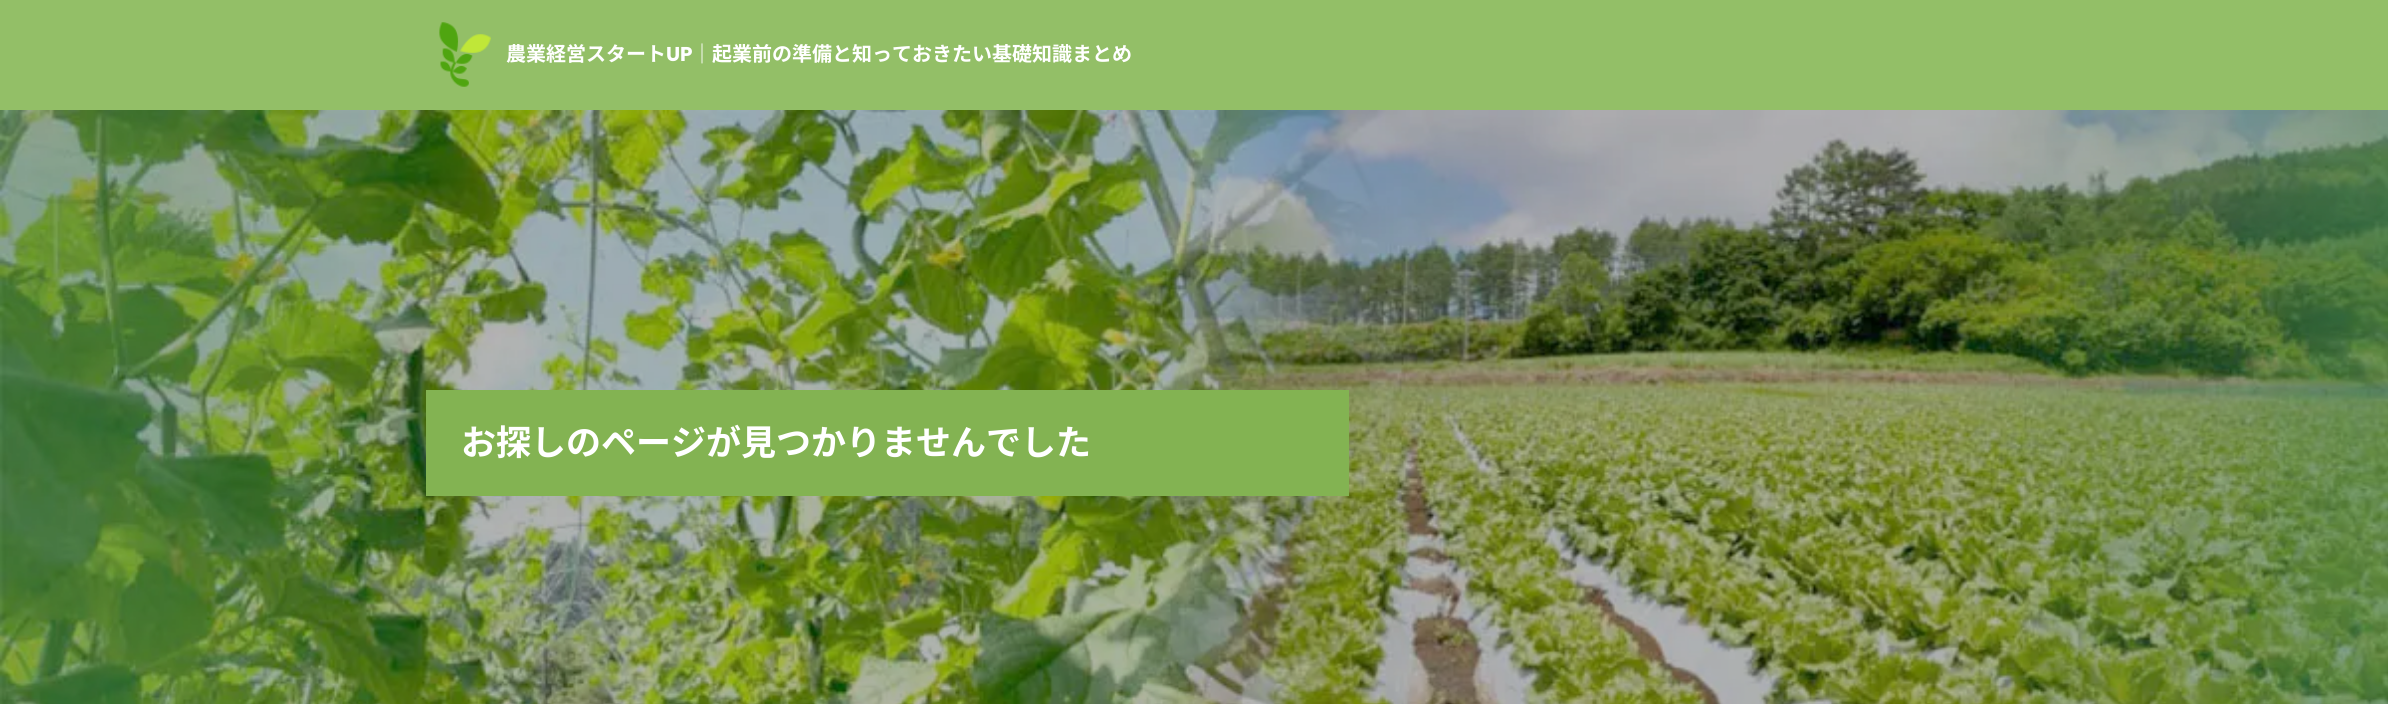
import math
import cairo

surface = cairo.ImageSurface(cairo.FORMAT_RGB24, 2388, 704)
ctx = cairo.Context(surface)
options = cairo.FontOptions()
options.set_hint_metrics(cairo.HINT_METRICS_OFF)
options.set_hint_style(cairo.HINT_STYLE_NONE)
ctx.set_font_options(options)
ctx.set_miter_limit(4)


def picture(path, x, y, w, h):
    ctx.save()
    ctx.set_source_surface(cairo.ImageSurface.create_from_png(path), x, y)
    ctx.rectangle(x, y, w, h)
    ctx.fill()
    ctx.restore()


ctx.set_source_rgb(1, 1, 1)
ctx.paint()
ctx.set_source_rgb(0.576, 0.749, 0.404)
ctx.rectangle(0, 0, 2388, 110)
ctx.fill()
picture("img1.png", 439, 22, 52, 65)
ctx.select_font_face("Noto Sans JP", cairo.FONT_SLANT_NORMAL, cairo.FONT_WEIGHT_BOLD)
ctx.set_font_size(20)
ctx.set_source_rgb(1, 1, 1)
ctx.move_to(506, 61)
ctx.show_text("農業経営スタート")
ctx.select_font_face("Poppins", cairo.FONT_SLANT_NORMAL, cairo.FONT_WEIGHT_BOLD)
ctx.move_to(666, 61)
ctx.show_text("UP")
ctx.select_font_face("Noto Sans JP", cairo.FONT_SLANT_NORMAL, cairo.FONT_WEIGHT_BOLD)
ctx.move_to(692, 61)
ctx.show_text("｜起業前の準備と知っておきたい基礎知識まとめ")
picture("img2.png", 0, 110, 2388, 594)
ctx.set_source_rgb(0.514, 0.702, 0.322)
ctx.rectangle(426, 390, 923, 106)
ctx.fill()
ctx.set_font_size(35)
ctx.set_source_rgb(1, 1, 1)
ctx.move_to(461, 455)
ctx.show_text("お探しのページが見つかりませんでした")
surface.write_to_png("page.png")
